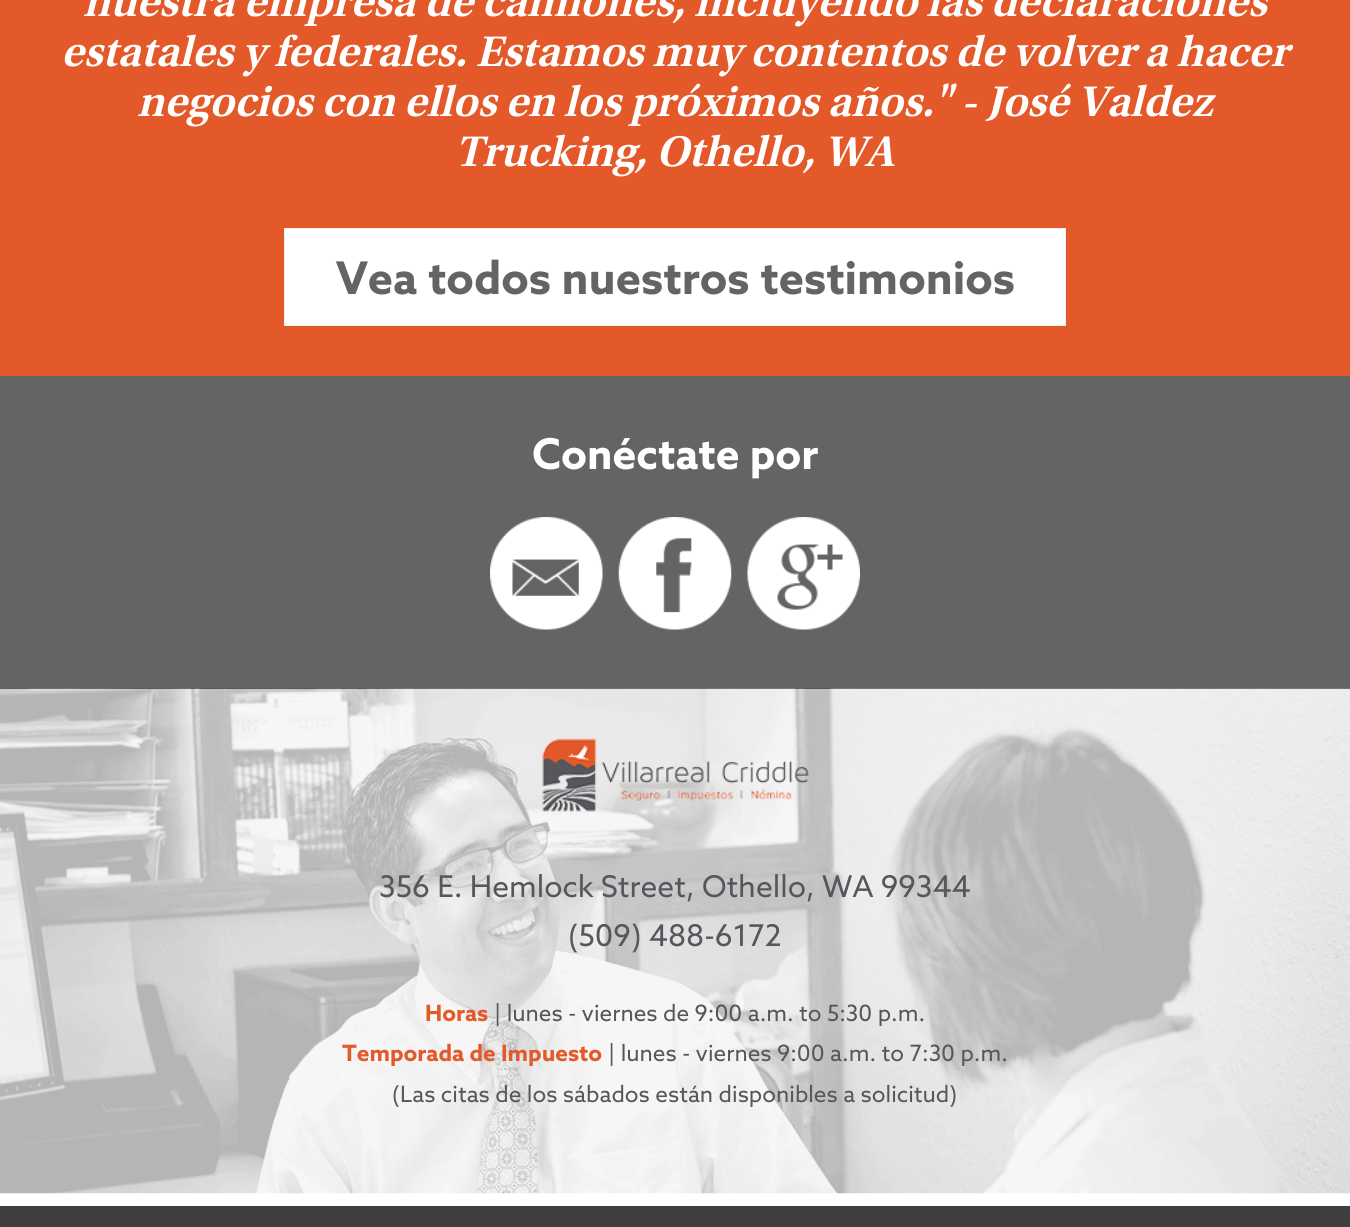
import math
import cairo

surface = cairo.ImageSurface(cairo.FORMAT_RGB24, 1350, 1227)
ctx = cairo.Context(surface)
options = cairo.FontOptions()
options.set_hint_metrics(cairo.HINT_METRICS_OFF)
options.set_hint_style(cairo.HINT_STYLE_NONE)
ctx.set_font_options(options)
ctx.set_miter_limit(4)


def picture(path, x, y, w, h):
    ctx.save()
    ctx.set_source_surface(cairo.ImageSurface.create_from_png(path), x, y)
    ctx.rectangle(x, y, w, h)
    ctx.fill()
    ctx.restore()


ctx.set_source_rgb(1, 1, 1)
ctx.paint()
ctx.set_source_rgb(0.89, 0.349, 0.165)
ctx.rectangle(0, 0, 1350, 376)
ctx.fill()
ctx.select_font_face("Utopia SemiBold", cairo.FONT_SLANT_ITALIC)
ctx.set_font_size(45)
ctx.set_source_rgb(1, 1, 1)
ctx.move_to(83, 16)
ctx.show_text("nuestra empresa de camiones, incluyendo las declaraciones")
ctx.move_to(61, 66)
ctx.show_text("estatales y federales. Estamos muy contentos de volver a hacer")
ctx.move_to(137, 116)
ctx.show_text("negocios con ellos en los próximos años.\" - José Valdez")
ctx.move_to(455, 166)
ctx.show_text("Trucking, Othello, WA")
ctx.rectangle(284.5, 228.5, 781, 97)
ctx.fill_preserve()
ctx.set_source_rgb(0.953, 0.953, 0.953)
ctx.set_line_width(1)
ctx.stroke()
ctx.select_font_face("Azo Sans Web", cairo.FONT_SLANT_NORMAL, cairo.FONT_WEIGHT_BOLD)
ctx.set_source_rgb(0.396, 0.388, 0.388)
ctx.move_to(336, 294)
ctx.show_text("Vea todos nuestros testimonios")
ctx.rectangle(0, 376, 1350, 313)
ctx.fill()
ctx.set_font_size(42.5)
ctx.set_source_rgb(1, 1, 1)
ctx.move_to(532, 469)
ctx.show_text("Conéctate por")
picture("img1.png", 490, 517, 113, 113)
picture("img2.png", 618, 517, 114, 113)
picture("img3.png", 747, 517, 113, 113)
picture("img4.png", 0, 688, 1350, 506)
picture("img5.png", 542, 738, 267, 74)
ctx.select_font_face("Azo Sans Web")
ctx.set_font_size(30)
ctx.set_source_rgb(0.341, 0.337, 0.361)
ctx.move_to(379, 897)
ctx.show_text("356 E. Hemlock Street, Othello, WA 99344")
ctx.move_to(568, 946)
ctx.show_text("(509) 488-6172")
ctx.select_font_face("Azo Sans Web", cairo.FONT_SLANT_NORMAL, cairo.FONT_WEIGHT_BOLD)
ctx.set_font_size(22.5)
ctx.set_source_rgb(0.89, 0.349, 0.165)
ctx.move_to(425, 1021)
ctx.show_text("Horas")
ctx.select_font_face("Azo Sans Web")
ctx.set_source_rgb(0.341, 0.337, 0.361)
ctx.move_to(494, 1021)
ctx.show_text("| lunes - viernes de 9:00 a.m. to 5:30 p.m.")
ctx.select_font_face("Azo Sans Web", cairo.FONT_SLANT_NORMAL, cairo.FONT_WEIGHT_BOLD)
ctx.set_source_rgb(0.89, 0.349, 0.165)
ctx.move_to(342, 1061)
ctx.show_text("Temporada de Impuesto")
ctx.select_font_face("Azo Sans Web")
ctx.set_source_rgb(0.341, 0.337, 0.361)
ctx.move_to(608, 1061)
ctx.show_text("| lunes - viernes 9:00 a.m. to 7:30 p.m.")
ctx.move_to(392, 1102)
ctx.show_text("(Las citas de los sábados están disponibles a solicitud)")
ctx.set_source_rgb(0.243, 0.243, 0.247)
ctx.rectangle(0, 1206, 1350, 21)
ctx.fill()
surface.write_to_png("page.png")
